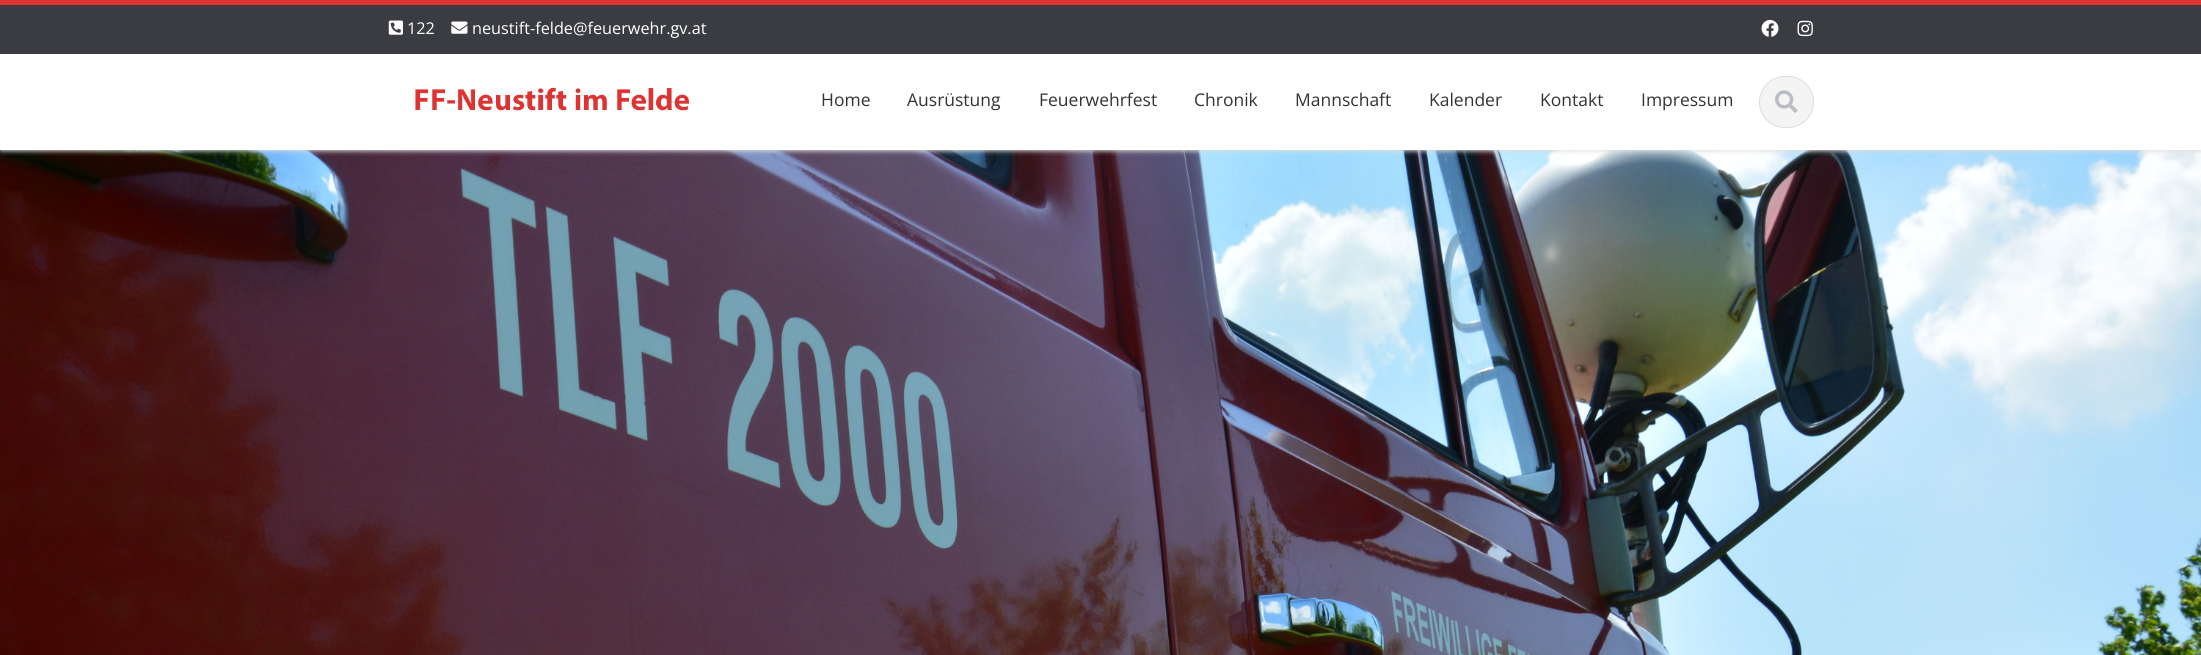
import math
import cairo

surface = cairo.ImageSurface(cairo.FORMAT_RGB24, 2201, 655)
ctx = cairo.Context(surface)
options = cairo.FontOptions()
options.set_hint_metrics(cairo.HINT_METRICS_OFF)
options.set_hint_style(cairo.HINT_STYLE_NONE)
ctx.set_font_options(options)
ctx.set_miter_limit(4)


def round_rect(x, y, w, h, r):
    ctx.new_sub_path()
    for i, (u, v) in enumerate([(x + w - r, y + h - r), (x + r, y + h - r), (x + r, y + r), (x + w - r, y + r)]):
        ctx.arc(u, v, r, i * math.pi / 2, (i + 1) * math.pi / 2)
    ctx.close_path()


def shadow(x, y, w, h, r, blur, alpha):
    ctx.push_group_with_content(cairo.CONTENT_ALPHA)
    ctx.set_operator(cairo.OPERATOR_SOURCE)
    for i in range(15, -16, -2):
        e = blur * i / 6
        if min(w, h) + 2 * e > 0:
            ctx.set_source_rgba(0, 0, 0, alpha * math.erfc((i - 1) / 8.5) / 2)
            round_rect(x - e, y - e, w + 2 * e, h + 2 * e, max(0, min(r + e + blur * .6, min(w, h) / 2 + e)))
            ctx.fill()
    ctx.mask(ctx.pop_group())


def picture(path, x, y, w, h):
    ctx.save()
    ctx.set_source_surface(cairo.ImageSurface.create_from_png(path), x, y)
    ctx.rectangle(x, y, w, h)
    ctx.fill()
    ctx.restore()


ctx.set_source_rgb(1, 1, 1)
ctx.paint()
picture("img7.png", 0, 150, 2201, 505)
ctx.save()
ctx.rectangle(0, 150, 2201, 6)
ctx.clip()
ctx.set_source_rgb(0.867, 0.867, 0.867)
shadow(1, 1, 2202, 150, 0, 2.5, 1)
ctx.restore()
ctx.set_source_rgb(0.227, 0.235, 0.255)
ctx.rectangle(0, 5, 2201, 49)
ctx.fill()
ctx.set_source_rgb(0.878, 0.2, 0.2)
ctx.rectangle(0, 0, 2201, 5)
ctx.fill()
picture("img1.png", 388, 20, 15, 15)
ctx.select_font_face("Open Sans")
ctx.set_font_size(16.25)
ctx.set_source_rgb(1, 1, 1)
ctx.move_to(407, 34)
ctx.show_text("122")
picture("img2.png", 451, 21, 17, 13)
ctx.move_to(472, 34)
ctx.show_text("neustift-felde@feuerwehr.gv.at")
picture("img3.png", 1761, 20, 18, 17)
picture("img4.png", 1797, 20, 16, 17)
picture("img5.png", 415, 87, 274, 25)
ctx.set_font_size(17.5)
ctx.set_source_rgb(0.2, 0.2, 0.2)
ctx.move_to(821, 106)
ctx.show_text("Home")
ctx.move_to(907, 106)
ctx.show_text("Ausrüstung")
ctx.move_to(1039, 106)
ctx.show_text("Feuerwehrfest")
ctx.move_to(1194, 106)
ctx.show_text("Chronik")
ctx.move_to(1295, 106)
ctx.show_text("Mannschaft")
ctx.move_to(1429, 106)
ctx.show_text("Kalender")
ctx.move_to(1540, 106)
ctx.show_text("Kontakt")
ctx.move_to(1641, 106)
ctx.show_text("Impressum")
ctx.set_source_rgb(0.957, 0.957, 0.957)
round_rect(1759.5, 76.5, 54, 51, 25.5)
ctx.fill_preserve()
ctx.set_source_rgb(0.867, 0.867, 0.867)
ctx.set_line_width(1)
ctx.stroke()
picture("img6.png", 1775, 90, 23, 23)
surface.write_to_png("page.png")
